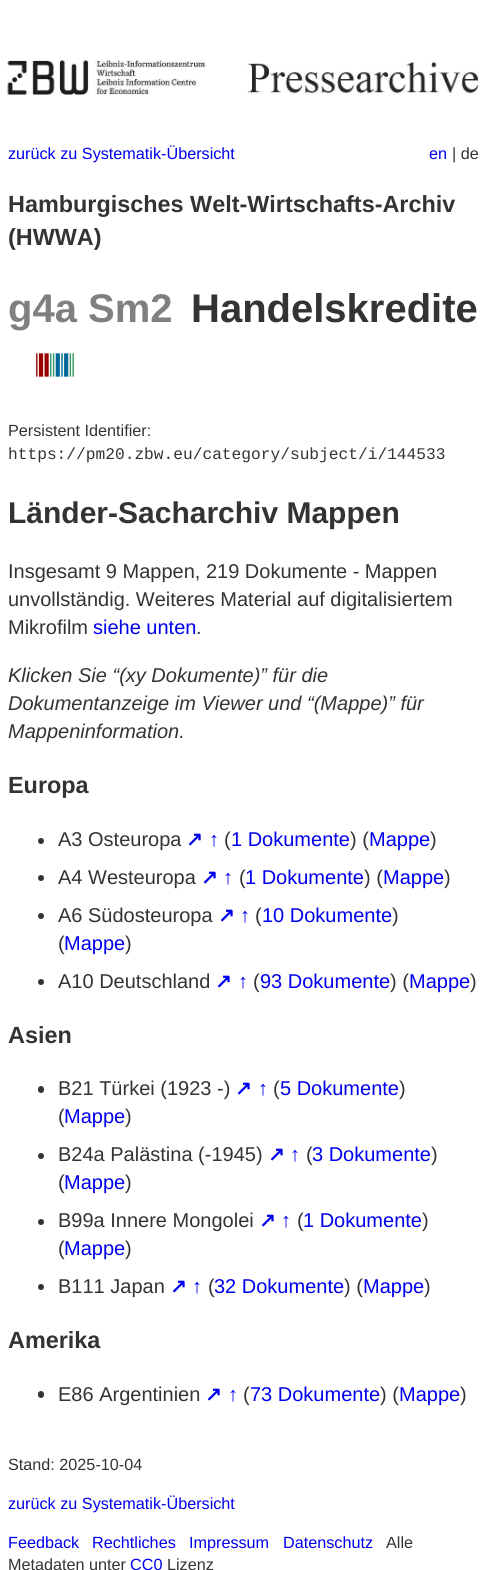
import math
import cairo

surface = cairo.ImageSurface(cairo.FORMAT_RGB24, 486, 1570)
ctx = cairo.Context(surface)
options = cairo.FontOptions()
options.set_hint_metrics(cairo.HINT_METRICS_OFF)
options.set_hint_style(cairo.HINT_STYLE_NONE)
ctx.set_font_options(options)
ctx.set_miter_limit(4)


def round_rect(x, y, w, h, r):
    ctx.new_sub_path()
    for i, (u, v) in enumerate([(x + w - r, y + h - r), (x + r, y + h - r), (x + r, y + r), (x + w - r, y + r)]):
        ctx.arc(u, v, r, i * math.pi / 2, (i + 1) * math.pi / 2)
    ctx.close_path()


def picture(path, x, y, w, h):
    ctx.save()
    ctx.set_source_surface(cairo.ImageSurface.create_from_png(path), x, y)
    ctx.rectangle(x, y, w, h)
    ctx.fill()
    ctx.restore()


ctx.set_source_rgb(1, 1, 1)
ctx.paint()
picture("img1.png", 7, 60, 472, 35)
ctx.select_font_face("Liberation Sans")
ctx.set_font_size(16.2)
ctx.set_source_rgb(0, 0, 0.933)
ctx.move_to(8, 159)
ctx.show_text("zurück zu Systematik-Übersicht")
ctx.move_to(429, 159)
ctx.show_text("en")
ctx.set_source_rgb(0.2, 0.2, 0.2)
ctx.move_to(452, 159)
ctx.show_text("| de")
ctx.select_font_face("Liberation Sans", cairo.FONT_SLANT_NORMAL, cairo.FONT_WEIGHT_BOLD)
ctx.set_font_size(23.4)
ctx.move_to(8, 212)
ctx.show_text("Hamburgisches Welt-Wirtschafts-Archiv")
ctx.move_to(8, 245)
ctx.show_text("(HWWA)")
ctx.set_font_size(40)
ctx.set_source_rgb(0.502, 0.502, 0.502)
ctx.move_to(8, 322)
ctx.show_text("g4a Sm2")
ctx.set_source_rgb(0.2, 0.2, 0.2)
ctx.move_to(191, 322)
ctx.show_text("Handelskredite")
picture("img2.png", 36, 353, 38, 24)
ctx.select_font_face("Liberation Sans")
ctx.set_font_size(16.2)
ctx.move_to(8, 436)
ctx.show_text("Persistent Identifier:")
ctx.select_font_face("Liberation Mono")
ctx.move_to(8, 459)
ctx.show_text("https://pm20.zbw.eu/category/subject/i/144533")
ctx.select_font_face("Liberation Sans", cairo.FONT_SLANT_NORMAL, cairo.FONT_WEIGHT_BOLD)
ctx.set_font_size(30)
ctx.move_to(8, 523)
ctx.show_text("Länder-Sacharchiv Mappen")
ctx.select_font_face("Liberation Sans")
ctx.set_font_size(20)
ctx.move_to(8, 578)
ctx.show_text("Insgesamt 9 Mappen, 219 Dokumente - Mappen")
ctx.move_to(8, 606)
ctx.show_text("unvollständig. Weiteres Material auf digitalisiertem")
ctx.move_to(8, 634)
ctx.show_text("Mikrofilm")
ctx.set_source_rgb(0, 0, 0.933)
ctx.move_to(93, 634)
ctx.show_text("siehe unten")
ctx.set_source_rgb(0.2, 0.2, 0.2)
ctx.move_to(196, 634)
ctx.show_text(".")
ctx.select_font_face("Liberation Sans", cairo.FONT_SLANT_ITALIC)
ctx.move_to(8, 682)
ctx.show_text("Klicken Sie “(xy Dokumente)” für die")
ctx.move_to(8, 710)
ctx.show_text("Dokumentanzeige im Viewer und “(Mappe)” für")
ctx.move_to(8, 738)
ctx.show_text("Mappeninformation.")
ctx.select_font_face("Liberation Sans", cairo.FONT_SLANT_NORMAL, cairo.FONT_WEIGHT_BOLD)
ctx.set_font_size(23.4)
ctx.move_to(8, 793)
ctx.show_text("Europa")
ctx.new_path()
ctx.arc(41, 841, 3, 0, 2 * math.pi)
ctx.fill()
ctx.select_font_face("Liberation Sans")
ctx.set_font_size(20)
ctx.move_to(58, 846)
ctx.show_text("A3 Osteuropa")
ctx.select_font_face("DejaVu Sans", cairo.FONT_SLANT_NORMAL, cairo.FONT_WEIGHT_BOLD)
ctx.set_source_rgb(0, 0, 0.933)
ctx.move_to(186, 846)
ctx.show_text("↗")
ctx.select_font_face("Liberation Sans", cairo.FONT_SLANT_NORMAL, cairo.FONT_WEIGHT_BOLD)
ctx.move_to(209, 846)
ctx.show_text("↑")
ctx.select_font_face("Liberation Sans")
ctx.set_source_rgb(0.2, 0.2, 0.2)
ctx.move_to(224, 846)
ctx.show_text("(")
ctx.set_source_rgb(0, 0, 0.933)
ctx.move_to(231, 846)
ctx.show_text("1 Dokumente")
ctx.set_source_rgb(0.2, 0.2, 0.2)
ctx.move_to(350, 846)
ctx.show_text(") (")
ctx.set_source_rgb(0, 0, 0.933)
ctx.move_to(369, 846)
ctx.show_text("Mappe")
ctx.set_source_rgb(0.2, 0.2, 0.2)
ctx.move_to(430, 846)
ctx.show_text(")")
ctx.new_path()
ctx.arc(41, 878, 3, 0, 2 * math.pi)
ctx.fill()
ctx.move_to(58, 884)
ctx.show_text("A4 Westeuropa")
ctx.select_font_face("DejaVu Sans", cairo.FONT_SLANT_NORMAL, cairo.FONT_WEIGHT_BOLD)
ctx.set_source_rgb(0, 0, 0.933)
ctx.move_to(201, 884)
ctx.show_text("↗")
ctx.select_font_face("Liberation Sans", cairo.FONT_SLANT_NORMAL, cairo.FONT_WEIGHT_BOLD)
ctx.move_to(223, 884)
ctx.show_text("↑")
ctx.select_font_face("Liberation Sans")
ctx.set_source_rgb(0.2, 0.2, 0.2)
ctx.move_to(239, 884)
ctx.show_text("(")
ctx.set_source_rgb(0, 0, 0.933)
ctx.move_to(245, 884)
ctx.show_text("1 Dokumente")
ctx.set_source_rgb(0.2, 0.2, 0.2)
ctx.move_to(364, 884)
ctx.show_text(") (")
ctx.set_source_rgb(0, 0, 0.933)
ctx.move_to(383, 884)
ctx.show_text("Mappe")
ctx.set_source_rgb(0.2, 0.2, 0.2)
ctx.move_to(444, 884)
ctx.show_text(")")
ctx.new_path()
ctx.arc(41, 916, 3, 0, 2 * math.pi)
ctx.fill()
ctx.move_to(58, 922)
ctx.show_text("A6 Südosteuropa")
ctx.select_font_face("DejaVu Sans", cairo.FONT_SLANT_NORMAL, cairo.FONT_WEIGHT_BOLD)
ctx.set_source_rgb(0, 0, 0.933)
ctx.move_to(218, 922)
ctx.show_text("↗")
ctx.select_font_face("Liberation Sans", cairo.FONT_SLANT_NORMAL, cairo.FONT_WEIGHT_BOLD)
ctx.move_to(240, 922)
ctx.show_text("↑")
ctx.select_font_face("Liberation Sans")
ctx.set_source_rgb(0.2, 0.2, 0.2)
ctx.move_to(255, 922)
ctx.show_text("(")
ctx.set_source_rgb(0, 0, 0.933)
ctx.move_to(262, 922)
ctx.show_text("10 Dokumente")
ctx.set_source_rgb(0.2, 0.2, 0.2)
ctx.move_to(392, 922)
ctx.show_text(")")
ctx.move_to(58, 950)
ctx.show_text("(")
ctx.set_source_rgb(0, 0, 0.933)
ctx.move_to(64, 950)
ctx.show_text("Mappe")
ctx.set_source_rgb(0.2, 0.2, 0.2)
ctx.move_to(125, 950)
ctx.show_text(")")
ctx.new_path()
ctx.arc(41, 982, 3, 0, 2 * math.pi)
ctx.fill()
ctx.move_to(58, 988)
ctx.show_text("A10 Deutschland")
ctx.select_font_face("DejaVu Sans", cairo.FONT_SLANT_NORMAL, cairo.FONT_WEIGHT_BOLD)
ctx.set_source_rgb(0, 0, 0.933)
ctx.move_to(215, 988)
ctx.show_text("↗")
ctx.select_font_face("Liberation Sans", cairo.FONT_SLANT_NORMAL, cairo.FONT_WEIGHT_BOLD)
ctx.move_to(238, 988)
ctx.show_text("↑")
ctx.select_font_face("Liberation Sans")
ctx.set_source_rgb(0.2, 0.2, 0.2)
ctx.move_to(253, 988)
ctx.show_text("(")
ctx.set_source_rgb(0, 0, 0.933)
ctx.move_to(260, 988)
ctx.show_text("93 Dokumente")
ctx.set_source_rgb(0.2, 0.2, 0.2)
ctx.move_to(390, 988)
ctx.show_text(") (")
ctx.set_source_rgb(0, 0, 0.933)
ctx.move_to(409, 988)
ctx.show_text("Mappe")
ctx.set_source_rgb(0.2, 0.2, 0.2)
ctx.move_to(470, 988)
ctx.show_text(")")
ctx.select_font_face("Liberation Sans", cairo.FONT_SLANT_NORMAL, cairo.FONT_WEIGHT_BOLD)
ctx.set_font_size(23.4)
ctx.move_to(8, 1043)
ctx.show_text("Asien")
round_rect(38, 1086, 6, 7, 3)
ctx.fill()
ctx.select_font_face("Liberation Sans")
ctx.set_font_size(20)
ctx.move_to(58, 1095)
ctx.show_text("B21 Türkei (1923 -)")
ctx.select_font_face("DejaVu Sans", cairo.FONT_SLANT_NORMAL, cairo.FONT_WEIGHT_BOLD)
ctx.set_source_rgb(0, 0, 0.933)
ctx.move_to(235, 1095)
ctx.show_text("↗")
ctx.select_font_face("Liberation Sans", cairo.FONT_SLANT_NORMAL, cairo.FONT_WEIGHT_BOLD)
ctx.move_to(258, 1095)
ctx.show_text("↑")
ctx.select_font_face("Liberation Sans")
ctx.set_source_rgb(0.2, 0.2, 0.2)
ctx.move_to(273, 1095)
ctx.show_text("(")
ctx.set_source_rgb(0, 0, 0.933)
ctx.move_to(280, 1095)
ctx.show_text("5 Dokumente")
ctx.set_source_rgb(0.2, 0.2, 0.2)
ctx.move_to(399, 1095)
ctx.show_text(")")
ctx.move_to(58, 1123)
ctx.show_text("(")
ctx.set_source_rgb(0, 0, 0.933)
ctx.move_to(64, 1123)
ctx.show_text("Mappe")
ctx.set_source_rgb(0.2, 0.2, 0.2)
ctx.move_to(125, 1123)
ctx.show_text(")")
ctx.new_path()
ctx.arc(41, 1156, 3, 0, 2 * math.pi)
ctx.fill()
ctx.move_to(58, 1161)
ctx.show_text("B24a Palästina (-1945)")
ctx.select_font_face("DejaVu Sans", cairo.FONT_SLANT_NORMAL, cairo.FONT_WEIGHT_BOLD)
ctx.set_source_rgb(0, 0, 0.933)
ctx.move_to(268, 1161)
ctx.show_text("↗")
ctx.select_font_face("Liberation Sans", cairo.FONT_SLANT_NORMAL, cairo.FONT_WEIGHT_BOLD)
ctx.move_to(290, 1161)
ctx.show_text("↑")
ctx.select_font_face("Liberation Sans")
ctx.set_source_rgb(0.2, 0.2, 0.2)
ctx.move_to(306, 1161)
ctx.show_text("(")
ctx.set_source_rgb(0, 0, 0.933)
ctx.move_to(312, 1161)
ctx.show_text("3 Dokumente")
ctx.set_source_rgb(0.2, 0.2, 0.2)
ctx.move_to(431, 1161)
ctx.show_text(")")
ctx.move_to(58, 1189)
ctx.show_text("(")
ctx.set_source_rgb(0, 0, 0.933)
ctx.move_to(64, 1189)
ctx.show_text("Mappe")
ctx.set_source_rgb(0.2, 0.2, 0.2)
ctx.move_to(125, 1189)
ctx.show_text(")")
ctx.new_path()
ctx.arc(41, 1222, 3, 0, 2 * math.pi)
ctx.fill()
ctx.move_to(58, 1227)
ctx.show_text("B99a Innere Mongolei")
ctx.select_font_face("DejaVu Sans", cairo.FONT_SLANT_NORMAL, cairo.FONT_WEIGHT_BOLD)
ctx.set_source_rgb(0, 0, 0.933)
ctx.move_to(259, 1227)
ctx.show_text("↗")
ctx.select_font_face("Liberation Sans", cairo.FONT_SLANT_NORMAL, cairo.FONT_WEIGHT_BOLD)
ctx.move_to(281, 1227)
ctx.show_text("↑")
ctx.select_font_face("Liberation Sans")
ctx.set_source_rgb(0.2, 0.2, 0.2)
ctx.move_to(297, 1227)
ctx.show_text("(")
ctx.set_source_rgb(0, 0, 0.933)
ctx.move_to(303, 1227)
ctx.show_text("1 Dokumente")
ctx.set_source_rgb(0.2, 0.2, 0.2)
ctx.move_to(422, 1227)
ctx.show_text(")")
ctx.move_to(58, 1255)
ctx.show_text("(")
ctx.set_source_rgb(0, 0, 0.933)
ctx.move_to(64, 1255)
ctx.show_text("Mappe")
ctx.set_source_rgb(0.2, 0.2, 0.2)
ctx.move_to(125, 1255)
ctx.show_text(")")
ctx.new_path()
ctx.arc(41, 1287, 3, 0, 2 * math.pi)
ctx.fill()
ctx.move_to(58, 1293)
ctx.show_text("B111 Japan")
ctx.select_font_face("DejaVu Sans", cairo.FONT_SLANT_NORMAL, cairo.FONT_WEIGHT_BOLD)
ctx.set_source_rgb(0, 0, 0.933)
ctx.move_to(170, 1293)
ctx.show_text("↗")
ctx.select_font_face("Liberation Sans", cairo.FONT_SLANT_NORMAL, cairo.FONT_WEIGHT_BOLD)
ctx.move_to(192, 1293)
ctx.show_text("↑")
ctx.select_font_face("Liberation Sans")
ctx.set_source_rgb(0.2, 0.2, 0.2)
ctx.move_to(208, 1293)
ctx.show_text("(")
ctx.set_source_rgb(0, 0, 0.933)
ctx.move_to(214, 1293)
ctx.show_text("32 Dokumente")
ctx.set_source_rgb(0.2, 0.2, 0.2)
ctx.move_to(344, 1293)
ctx.show_text(") (")
ctx.set_source_rgb(0, 0, 0.933)
ctx.move_to(363, 1293)
ctx.show_text("Mappe")
ctx.set_source_rgb(0.2, 0.2, 0.2)
ctx.move_to(424, 1293)
ctx.show_text(")")
ctx.select_font_face("Liberation Sans", cairo.FONT_SLANT_NORMAL, cairo.FONT_WEIGHT_BOLD)
ctx.set_font_size(23.4)
ctx.move_to(8, 1348)
ctx.show_text("Amerika")
round_rect(38, 1391, 6, 7, 3)
ctx.fill()
ctx.select_font_face("Liberation Sans")
ctx.set_font_size(20)
ctx.move_to(58, 1401)
ctx.show_text("E86 Argentinien")
ctx.select_font_face("DejaVu Sans", cairo.FONT_SLANT_NORMAL, cairo.FONT_WEIGHT_BOLD)
ctx.set_source_rgb(0, 0, 0.933)
ctx.move_to(205, 1401)
ctx.show_text("↗")
ctx.select_font_face("Liberation Sans", cairo.FONT_SLANT_NORMAL, cairo.FONT_WEIGHT_BOLD)
ctx.move_to(228, 1401)
ctx.show_text("↑")
ctx.select_font_face("Liberation Sans")
ctx.set_source_rgb(0.2, 0.2, 0.2)
ctx.move_to(243, 1401)
ctx.show_text("(")
ctx.set_source_rgb(0, 0, 0.933)
ctx.move_to(250, 1401)
ctx.show_text("73 Dokumente")
ctx.set_source_rgb(0.2, 0.2, 0.2)
ctx.move_to(380, 1401)
ctx.show_text(") (")
ctx.set_source_rgb(0, 0, 0.933)
ctx.move_to(399, 1401)
ctx.show_text("Mappe")
ctx.set_source_rgb(0.2, 0.2, 0.2)
ctx.move_to(460, 1401)
ctx.show_text(")")
ctx.set_font_size(16.2)
ctx.move_to(8, 1470)
ctx.show_text("Stand: 2025-10-04")
ctx.set_source_rgb(0, 0, 0.933)
ctx.move_to(8, 1509)
ctx.show_text("zurück zu Systematik-Übersicht")
ctx.move_to(8, 1548)
ctx.show_text("Feedback")
ctx.move_to(92, 1548)
ctx.show_text("Rechtliches")
ctx.move_to(189, 1548)
ctx.show_text("Impressum")
ctx.move_to(283, 1548)
ctx.show_text("Datenschutz")
ctx.set_source_rgb(0.2, 0.2, 0.2)
ctx.move_to(386, 1548)
ctx.show_text("Alle")
ctx.move_to(8, 1570)
ctx.show_text("Metadaten unter")
ctx.set_source_rgb(0, 0, 0.933)
ctx.move_to(130, 1570)
ctx.show_text("CC0")
ctx.set_source_rgb(0.2, 0.2, 0.2)
ctx.move_to(167, 1570)
ctx.show_text("Lizenz")
surface.write_to_png("page.png")
